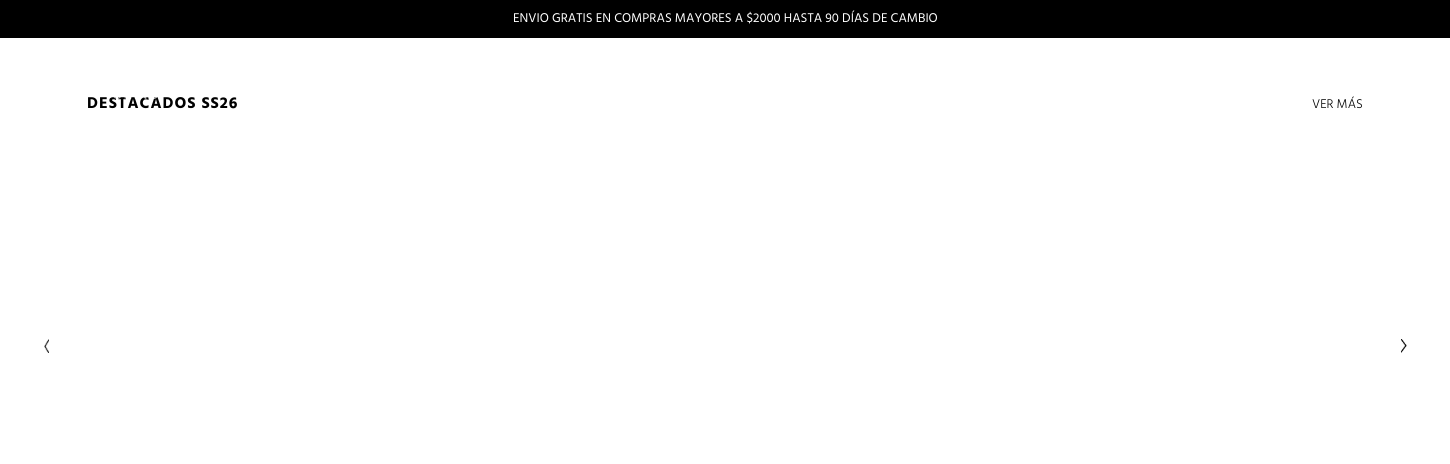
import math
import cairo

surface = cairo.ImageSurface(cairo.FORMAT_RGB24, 1450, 464)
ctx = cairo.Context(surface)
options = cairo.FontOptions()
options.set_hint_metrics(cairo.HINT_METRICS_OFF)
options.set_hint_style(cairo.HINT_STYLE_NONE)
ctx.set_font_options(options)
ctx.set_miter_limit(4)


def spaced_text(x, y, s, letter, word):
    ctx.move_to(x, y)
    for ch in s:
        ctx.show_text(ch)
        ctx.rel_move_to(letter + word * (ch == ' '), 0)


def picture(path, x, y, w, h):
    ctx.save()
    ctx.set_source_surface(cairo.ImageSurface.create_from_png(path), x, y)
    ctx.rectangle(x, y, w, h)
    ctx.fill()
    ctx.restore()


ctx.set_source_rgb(1, 1, 1)
ctx.paint()
ctx.set_source_rgb(0, 0, 0)
ctx.rectangle(0, 0, 1450, 38)
ctx.fill()
ctx.select_font_face("Hind")
ctx.set_font_size(13)
ctx.set_source_rgb(1, 1, 1)
ctx.move_to(513, 22)
ctx.show_text("ENVIO GRATIS EN COMPRAS MAYORES A $2000 HASTA 90 DÍAS DE CAMBIO")
ctx.select_font_face("Hind", cairo.FONT_SLANT_NORMAL, cairo.FONT_WEIGHT_BOLD)
ctx.set_font_size(16)
ctx.set_source_rgb(0, 0, 0)
spaced_text(87, 108, "DESTACADOS SS26", 1, 0)
picture("img1.png", 113, 97, 45, 2)
ctx.select_font_face("Hind Light")
ctx.set_font_size(13)
ctx.move_to(1312, 108)
ctx.show_text("VER MÁS")
picture("img2.png", 44, 339, 5, 14)
picture("img3.png", 1401, 339, 6, 14)
surface.write_to_png("page.png")
